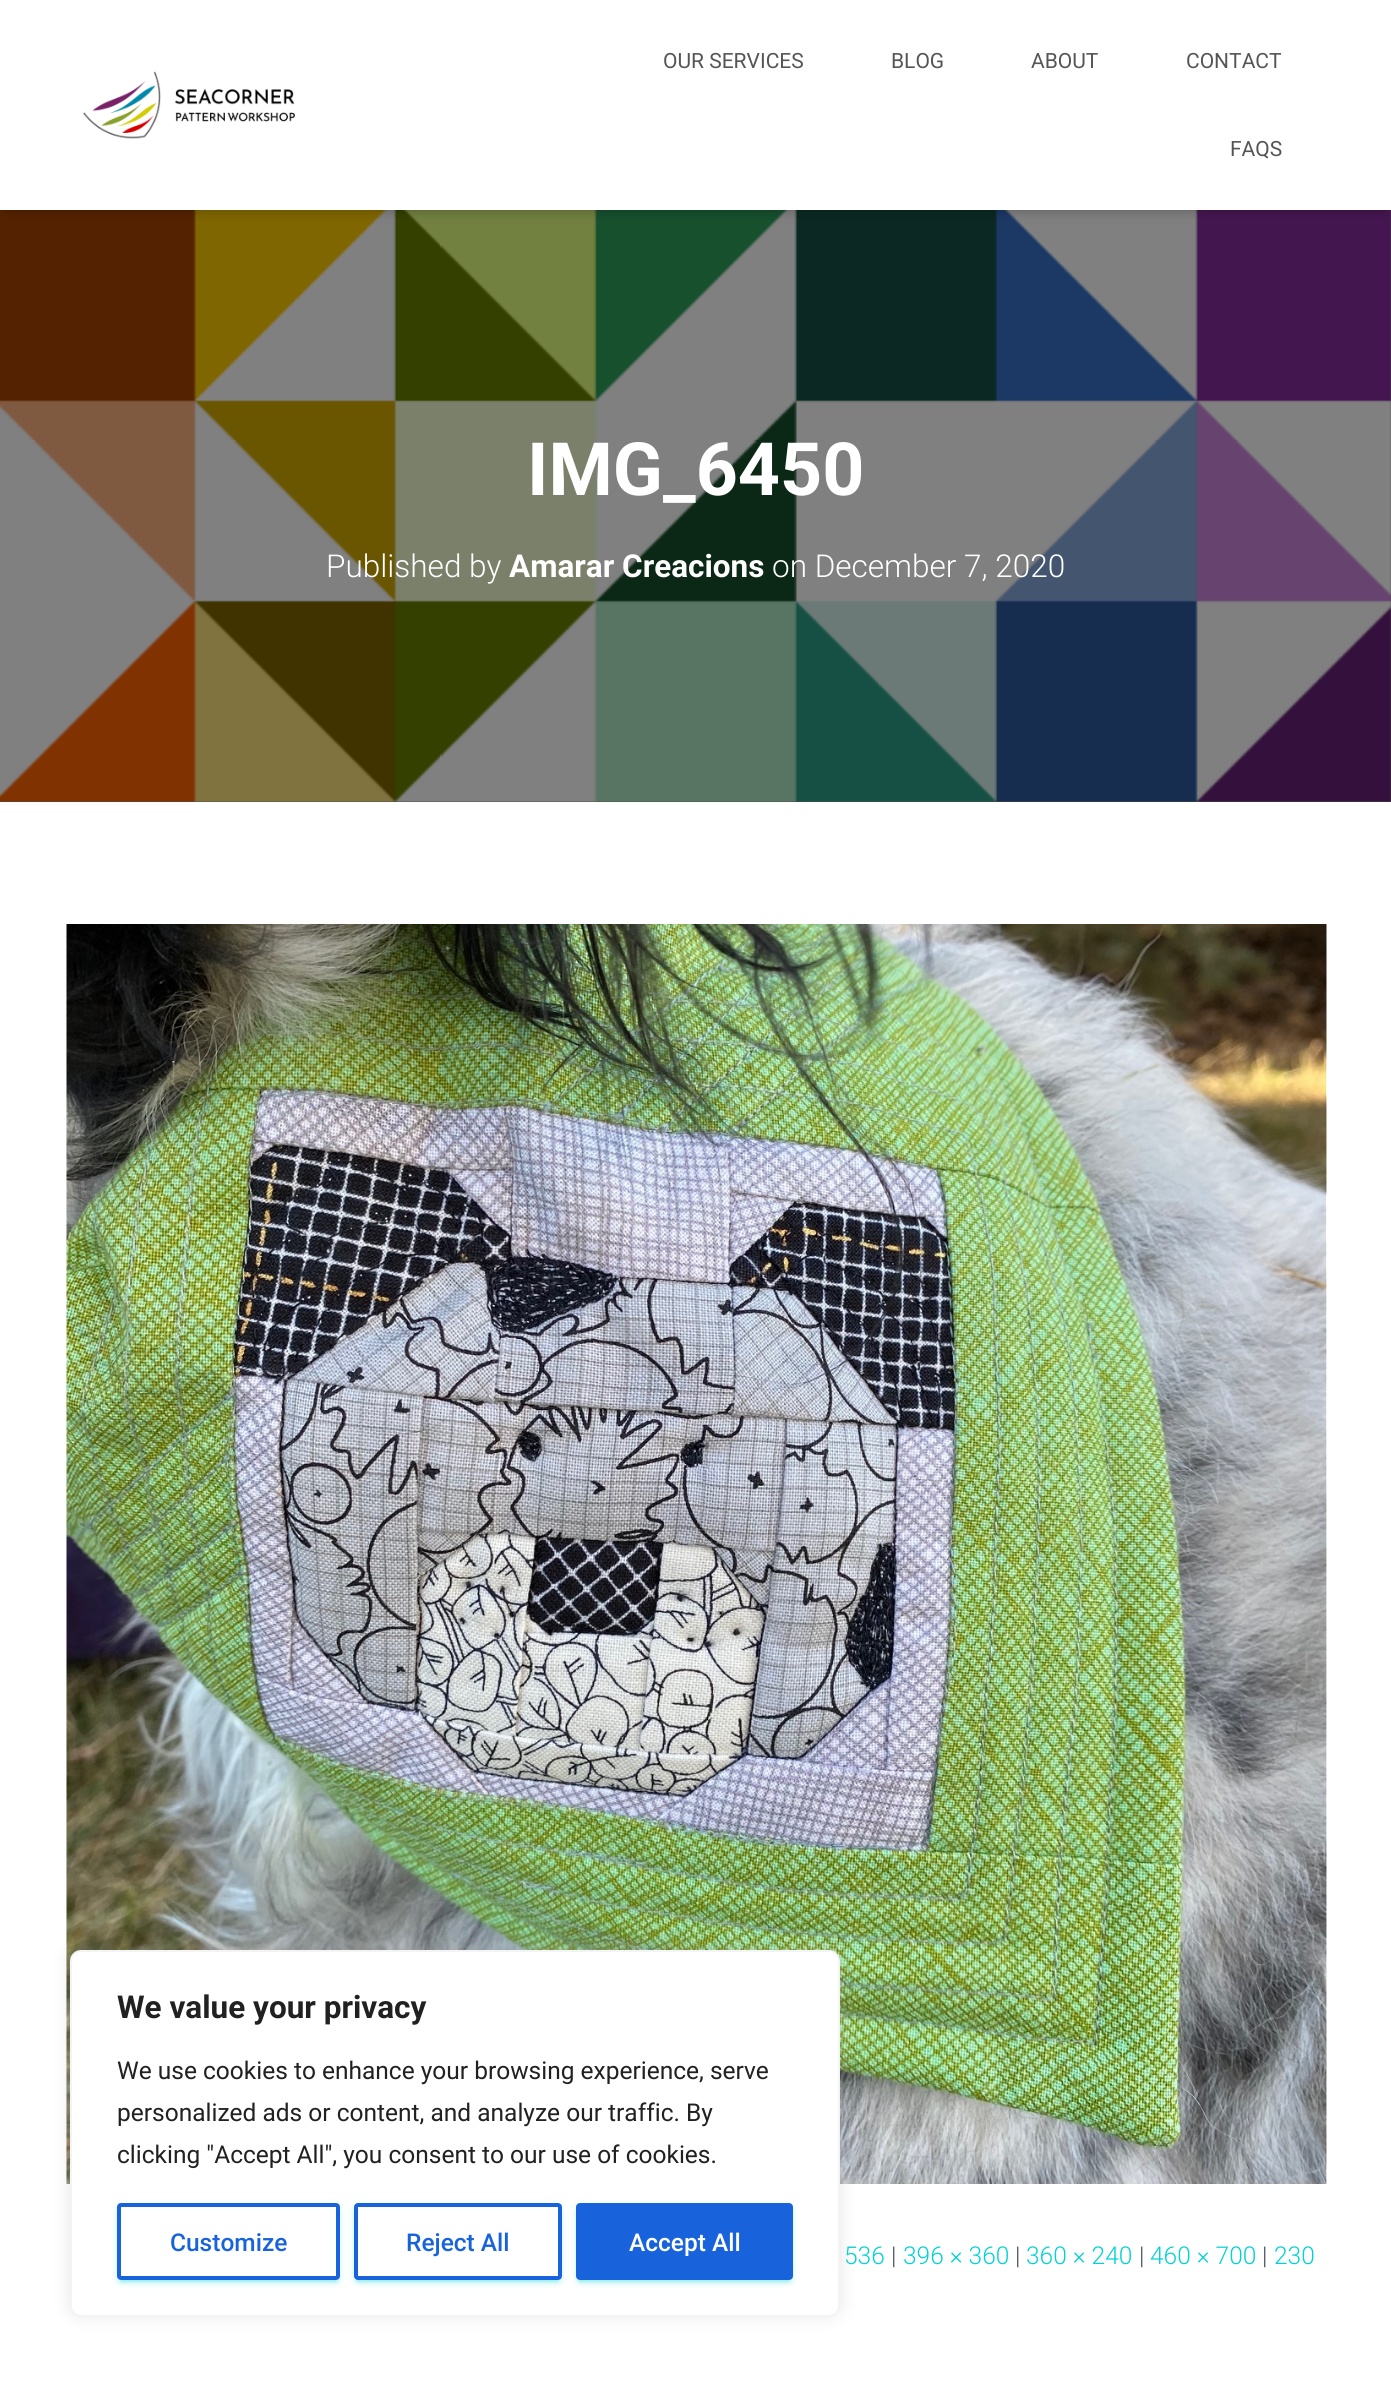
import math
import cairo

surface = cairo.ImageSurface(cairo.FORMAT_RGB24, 1391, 2387)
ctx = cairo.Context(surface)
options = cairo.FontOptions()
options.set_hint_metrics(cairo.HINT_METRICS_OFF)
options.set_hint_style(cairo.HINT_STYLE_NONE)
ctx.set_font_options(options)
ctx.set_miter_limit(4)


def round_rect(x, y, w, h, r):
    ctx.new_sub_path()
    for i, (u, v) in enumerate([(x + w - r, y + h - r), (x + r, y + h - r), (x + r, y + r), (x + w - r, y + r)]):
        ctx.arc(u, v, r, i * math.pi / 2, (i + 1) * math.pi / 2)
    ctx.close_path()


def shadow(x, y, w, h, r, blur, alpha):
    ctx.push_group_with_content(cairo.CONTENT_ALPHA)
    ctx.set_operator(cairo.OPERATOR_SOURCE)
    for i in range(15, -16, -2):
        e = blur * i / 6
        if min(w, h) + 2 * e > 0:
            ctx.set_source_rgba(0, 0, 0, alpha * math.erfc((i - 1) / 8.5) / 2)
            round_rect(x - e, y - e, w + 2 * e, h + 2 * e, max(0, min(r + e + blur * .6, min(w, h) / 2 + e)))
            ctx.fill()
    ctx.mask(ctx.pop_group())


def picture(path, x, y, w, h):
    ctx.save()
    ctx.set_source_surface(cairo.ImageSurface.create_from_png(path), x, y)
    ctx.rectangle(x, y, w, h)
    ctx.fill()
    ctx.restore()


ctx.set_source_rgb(0.302, 0.302, 0.302)
ctx.paint()
picture("img2.png", 0, 210, 1391, 592)
ctx.set_source_rgb(0, 0, 0)
shadow(4, 11, 1384, 203, 0, 4.5, 0.1)
shadow(11, 12, 1370, 189, 0, 9, 0.42)
ctx.set_source_rgb(1, 1, 1)
ctx.rectangle(0, 0, 1391, 210)
ctx.fill()
picture("img1.png", 83, 71, 212, 68)
ctx.select_font_face("Roboto")
ctx.set_font_size(21)
ctx.set_source_rgb(0.333, 0.333, 0.333)
ctx.move_to(663, 68)
ctx.show_text("OUR SERVICES")
ctx.move_to(891, 68)
ctx.show_text("BLOG")
ctx.move_to(1031, 68)
ctx.show_text("ABOUT")
ctx.move_to(1186, 68)
ctx.show_text("CONTACT")
ctx.move_to(1230, 156)
ctx.show_text("FAQS")
ctx.select_font_face("Roboto", cairo.FONT_SLANT_NORMAL, cairo.FONT_WEIGHT_BOLD)
ctx.set_font_size(73.5)
ctx.set_source_rgb(1, 1, 1)
ctx.move_to(527, 495)
ctx.show_text("IMG_6450")
ctx.select_font_face("Roboto Light")
ctx.set_font_size(31.5)
ctx.move_to(326, 577)
ctx.show_text("Published by")
ctx.select_font_face("Roboto", cairo.FONT_SLANT_NORMAL, cairo.FONT_WEIGHT_BOLD)
ctx.move_to(509, 577)
ctx.show_text("Amarar Creacions")
ctx.select_font_face("Roboto Light")
ctx.move_to(772, 577)
ctx.show_text("on December 7, 2020")
ctx.rectangle(0, 802, 1391, 1585)
ctx.fill()
picture("img3.png", 66, 924, 1261, 1260)
ctx.set_font_size(24.5)
ctx.set_source_rgb(0, 0.827, 0.827)
ctx.move_to(844, 2264)
ctx.show_text("536")
ctx.set_source_rgb(0.235, 0.282, 0.345)
ctx.move_to(891, 2264)
ctx.show_text("|")
ctx.set_source_rgb(0, 0.827, 0.827)
ctx.move_to(903, 2264)
ctx.show_text("396 × 360")
ctx.set_source_rgb(0.235, 0.282, 0.345)
ctx.move_to(1015, 2264)
ctx.show_text("|")
ctx.set_source_rgb(0, 0.827, 0.827)
ctx.move_to(1026, 2264)
ctx.show_text("360 × 240")
ctx.set_source_rgb(0.235, 0.282, 0.345)
ctx.move_to(1139, 2264)
ctx.show_text("|")
ctx.set_source_rgb(0, 0.827, 0.827)
ctx.move_to(1150, 2264)
ctx.show_text("460 × 700")
ctx.set_source_rgb(0.235, 0.282, 0.345)
ctx.move_to(1262, 2264)
ctx.show_text("|")
ctx.set_source_rgb(0, 0.827, 0.827)
ctx.move_to(1274, 2264)
ctx.show_text("230")
ctx.set_source_rgb(0.675, 0.671, 0.671)
shadow(70, 1948, 770, 367, 11, 9, 0.3)
ctx.set_source_rgb(1, 1, 1)
round_rect(71, 1951, 768, 365, 10)
ctx.fill_preserve()
ctx.set_source_rgb(0.957, 0.957, 0.957)
ctx.stroke()
ctx.select_font_face("Roboto", cairo.FONT_SLANT_NORMAL, cairo.FONT_WEIGHT_BOLD)
ctx.set_font_size(31.5)
ctx.set_source_rgb(0.129, 0.129, 0.129)
ctx.move_to(117, 2018)
ctx.show_text("We value your privacy")
ctx.select_font_face("Roboto")
ctx.set_font_size(24.5)
ctx.move_to(117, 2079)
ctx.show_text("We use cookies to enhance your browsing experience, serve")
ctx.move_to(117, 2121)
ctx.show_text("personalized ads or content, and analyze our traffic. By")
ctx.move_to(117, 2163)
ctx.show_text("clicking \"Accept All\", you consent to our use of cookies.")
ctx.save()
ctx.set_fill_rule(cairo.FILL_RULE_EVEN_ODD)
ctx.new_path()
ctx.move_to(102, 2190)
ctx.line_to(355, 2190)
ctx.line_to(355, 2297)
ctx.line_to(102, 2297)
ctx.close_path()
ctx.move_to(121, 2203)
ctx.line_to(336, 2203)
ctx.curve_to(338, 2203, 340, 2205, 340, 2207)
ctx.line_to(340, 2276)
ctx.curve_to(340, 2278, 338, 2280, 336, 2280)
ctx.line_to(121, 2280)
ctx.curve_to(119, 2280, 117, 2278, 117, 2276)
ctx.line_to(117, 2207)
ctx.curve_to(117, 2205, 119, 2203, 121, 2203)
ctx.close_path()
ctx.clip()
ctx.set_source_rgb(0, 0.827, 0.827)
shadow(117, 2205, 223, 77, 4, 4.5, 0.12)
ctx.restore()
ctx.save()
ctx.rectangle(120, 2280, 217, 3)
ctx.clip()
ctx.set_source_rgb(0, 0.827, 0.827)
shadow(121, 2212, 215, 70, 0, 1, 0.2)
ctx.restore()
ctx.save()
ctx.set_fill_rule(cairo.FILL_RULE_EVEN_ODD)
ctx.new_path()
ctx.move_to(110, 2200)
ctx.line_to(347, 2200)
ctx.line_to(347, 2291)
ctx.line_to(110, 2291)
ctx.close_path()
ctx.move_to(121, 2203)
ctx.line_to(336, 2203)
ctx.curve_to(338, 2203, 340, 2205, 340, 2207)
ctx.line_to(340, 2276)
ctx.curve_to(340, 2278, 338, 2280, 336, 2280)
ctx.line_to(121, 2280)
ctx.curve_to(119, 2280, 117, 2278, 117, 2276)
ctx.line_to(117, 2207)
ctx.curve_to(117, 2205, 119, 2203, 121, 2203)
ctx.close_path()
ctx.clip()
ctx.set_source_rgb(0, 0.827, 0.827)
shadow(117, 2207, 223, 77, 4, 2, 0.14)
ctx.restore()
round_rect(119, 2205, 219, 73, 2)
ctx.set_source_rgb(0.094, 0.388, 0.863)
ctx.set_line_width(4)
ctx.stroke()
ctx.select_font_face("Roboto Medium")
ctx.move_to(170, 2251)
ctx.show_text("Customize")
ctx.save()
ctx.set_fill_rule(cairo.FILL_RULE_EVEN_ODD)
ctx.new_path()
ctx.move_to(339, 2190)
ctx.line_to(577, 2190)
ctx.line_to(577, 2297)
ctx.line_to(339, 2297)
ctx.close_path()
ctx.move_to(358, 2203)
ctx.line_to(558, 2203)
ctx.curve_to(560, 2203, 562, 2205, 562, 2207)
ctx.line_to(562, 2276)
ctx.curve_to(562, 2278, 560, 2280, 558, 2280)
ctx.line_to(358, 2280)
ctx.curve_to(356, 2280, 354, 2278, 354, 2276)
ctx.line_to(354, 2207)
ctx.curve_to(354, 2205, 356, 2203, 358, 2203)
ctx.close_path()
ctx.clip()
ctx.set_source_rgb(0, 0.827, 0.827)
shadow(354, 2205, 208, 77, 4, 4.5, 0.12)
ctx.restore()
ctx.save()
ctx.rectangle(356, 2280, 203, 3)
ctx.clip()
ctx.set_source_rgb(0, 0.827, 0.827)
shadow(357, 2212, 201, 70, 0, 1, 0.2)
ctx.restore()
ctx.save()
ctx.set_fill_rule(cairo.FILL_RULE_EVEN_ODD)
ctx.new_path()
ctx.move_to(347, 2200)
ctx.line_to(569, 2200)
ctx.line_to(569, 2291)
ctx.line_to(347, 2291)
ctx.close_path()
ctx.move_to(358, 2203)
ctx.line_to(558, 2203)
ctx.curve_to(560, 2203, 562, 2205, 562, 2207)
ctx.line_to(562, 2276)
ctx.curve_to(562, 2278, 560, 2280, 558, 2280)
ctx.line_to(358, 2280)
ctx.curve_to(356, 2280, 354, 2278, 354, 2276)
ctx.line_to(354, 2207)
ctx.curve_to(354, 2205, 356, 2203, 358, 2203)
ctx.close_path()
ctx.clip()
ctx.set_source_rgb(0, 0.827, 0.827)
shadow(354, 2207, 208, 77, 4, 2, 0.14)
ctx.restore()
round_rect(356, 2205, 204, 73, 2)
ctx.stroke()
ctx.move_to(406, 2251)
ctx.show_text("Reject All")
ctx.set_source_rgb(0, 0.827, 0.827)
shadow(576, 2205, 217, 77, 4, 4.5, 0.12)
shadow(579, 2212, 210, 70, 0, 1, 0.2)
shadow(576, 2207, 217, 77, 4, 2, 0.14)
ctx.set_source_rgb(0.094, 0.388, 0.863)
round_rect(578, 2205, 213, 73, 2)
ctx.fill_preserve()
ctx.stroke()
ctx.set_source_rgb(1, 1, 1)
ctx.move_to(629, 2251)
ctx.show_text("Accept All")
surface.write_to_png("page.png")
